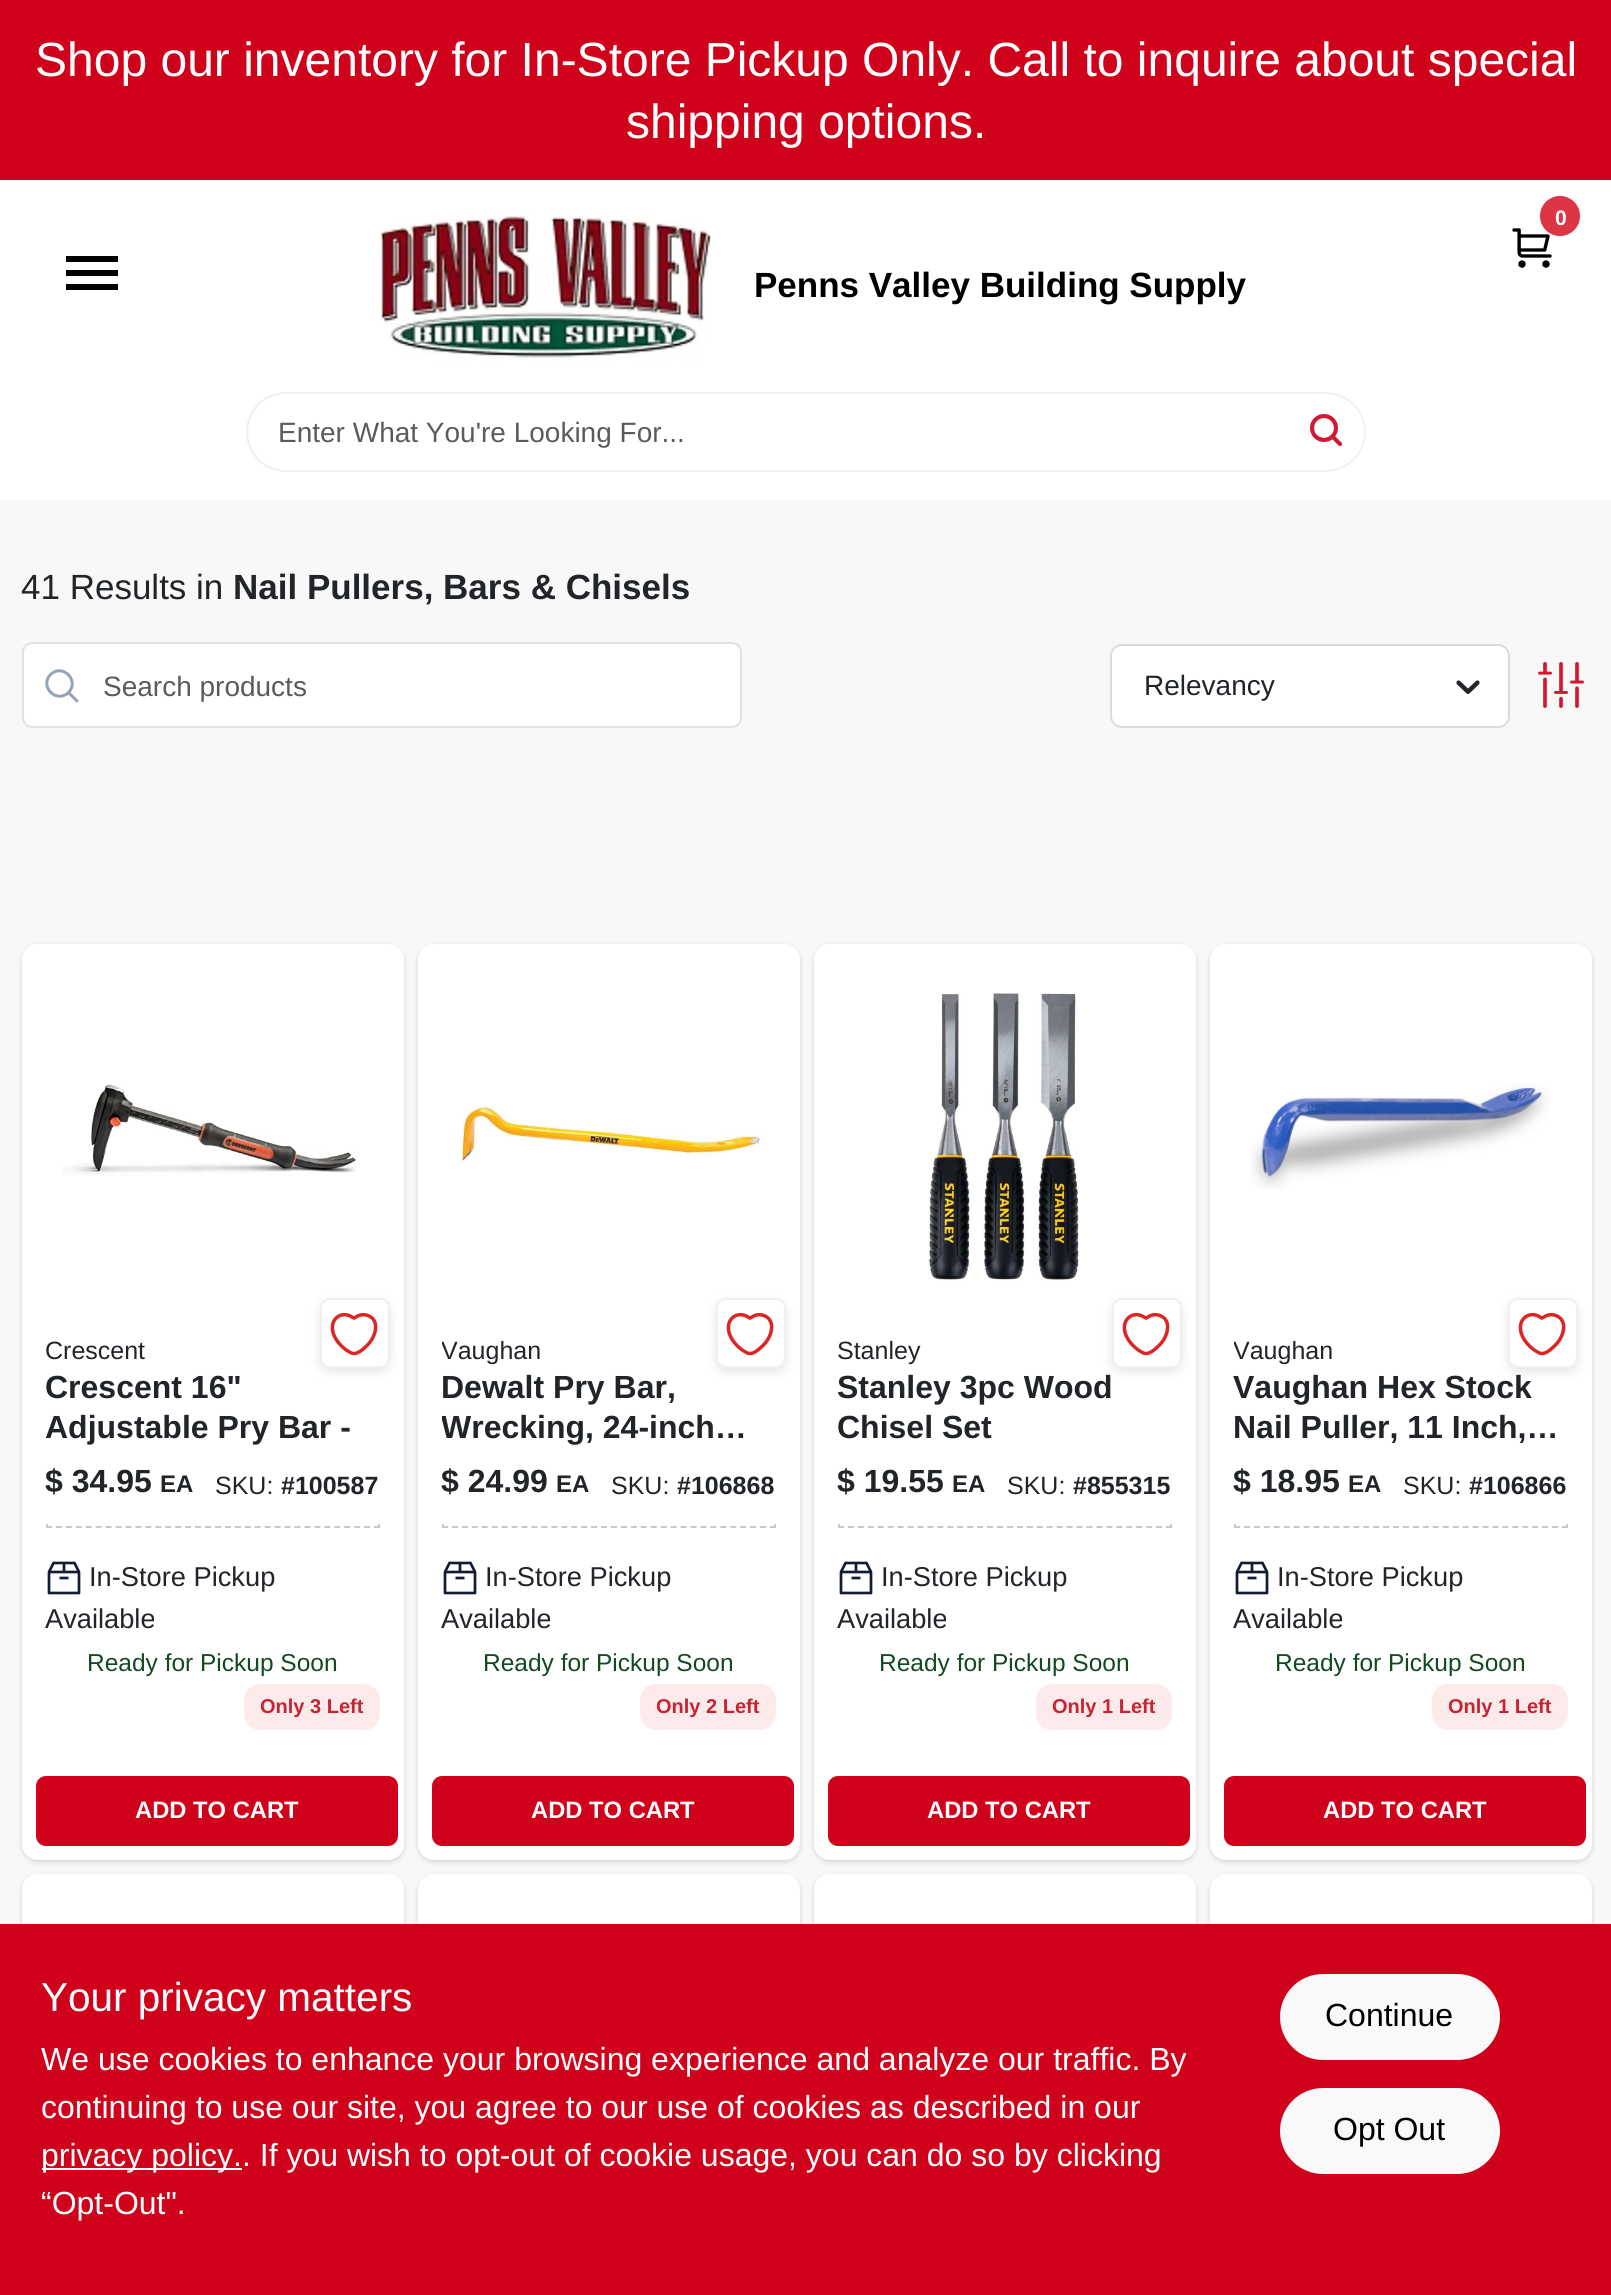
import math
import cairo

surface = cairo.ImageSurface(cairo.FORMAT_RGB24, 1611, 2295)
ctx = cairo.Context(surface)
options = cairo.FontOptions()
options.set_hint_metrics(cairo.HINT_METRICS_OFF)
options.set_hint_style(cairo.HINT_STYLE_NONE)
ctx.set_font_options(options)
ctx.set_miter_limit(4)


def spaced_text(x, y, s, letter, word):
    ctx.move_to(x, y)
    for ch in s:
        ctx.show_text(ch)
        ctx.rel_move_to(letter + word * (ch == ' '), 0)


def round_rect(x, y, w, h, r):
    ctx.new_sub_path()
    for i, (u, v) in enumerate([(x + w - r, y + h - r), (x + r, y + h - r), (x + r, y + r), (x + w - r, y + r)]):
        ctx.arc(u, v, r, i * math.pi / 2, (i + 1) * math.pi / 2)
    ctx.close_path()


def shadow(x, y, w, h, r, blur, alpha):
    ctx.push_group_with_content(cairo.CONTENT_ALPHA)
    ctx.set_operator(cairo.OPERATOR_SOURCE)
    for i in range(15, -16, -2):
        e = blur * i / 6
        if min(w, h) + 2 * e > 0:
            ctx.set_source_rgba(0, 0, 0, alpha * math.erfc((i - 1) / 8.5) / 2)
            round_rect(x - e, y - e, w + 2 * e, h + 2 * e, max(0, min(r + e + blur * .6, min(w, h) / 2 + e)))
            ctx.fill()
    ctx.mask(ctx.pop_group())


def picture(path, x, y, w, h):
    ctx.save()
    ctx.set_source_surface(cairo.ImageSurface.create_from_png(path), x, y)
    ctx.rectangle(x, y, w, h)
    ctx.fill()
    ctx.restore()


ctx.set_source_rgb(0.969, 0.969, 0.969)
ctx.paint()
ctx.set_source_rgb(0.816, 0.008, 0.106)
ctx.rectangle(0, 0, 1611, 180)
ctx.fill()
ctx.select_font_face("Liberation Sans")
ctx.set_font_size(48)
ctx.set_source_rgb(1, 1, 1)
ctx.move_to(35, 76)
ctx.show_text("Shop our inventory for In-Store Pickup Only. Call to inquire about special")
ctx.move_to(626, 138)
ctx.show_text("shipping options.")
ctx.rectangle(0, 180, 1611, 320)
ctx.fill()
picture("img1.png", 1512, 228, 40, 40)
ctx.set_source_rgb(0.863, 0.208, 0.271)
ctx.arc(1560, 216, 20, 0, 2 * math.pi)
ctx.fill()
ctx.select_font_face("Liberation Sans", cairo.FONT_SLANT_NORMAL, cairo.FONT_WEIGHT_BOLD)
ctx.set_font_size(21)
ctx.set_source_rgb(1, 1, 1)
spaced_text(1555, 225, "0", -2, 0)
ctx.set_source_rgb(0, 0, 0)
ctx.rectangle(66, 256, 52, 6)
ctx.fill()
ctx.rectangle(66, 270, 52, 6)
ctx.fill()
ctx.rectangle(66, 284, 52, 6)
ctx.fill()
picture("img2.png", 379, 215, 333, 149)
ctx.set_font_size(35)
ctx.move_to(754, 297)
ctx.show_text("Penns Valley Building Supply")
round_rect(247, 393, 1118, 78, 39)
ctx.set_source_rgb(0.941, 0.941, 0.941)
ctx.stroke()
ctx.select_font_face("Liberation Sans")
ctx.set_font_size(28)
ctx.set_source_rgb(0.349, 0.361, 0.373)
ctx.move_to(278, 442)
ctx.show_text("Enter What You're Looking For...")
picture("img3.png", 1310, 414, 32, 32)
ctx.set_font_size(35)
ctx.set_source_rgb(0.129, 0.145, 0.161)
ctx.move_to(21, 599)
ctx.show_text("41 Results in")
ctx.select_font_face("Liberation Sans", cairo.FONT_SLANT_NORMAL, cairo.FONT_WEIGHT_BOLD)
ctx.move_to(233, 599)
ctx.show_text("Nail Pullers, Bars & Chisels")
ctx.set_source_rgb(1, 1, 1)
round_rect(24, 644, 716, 82, 8)
ctx.fill()
ctx.new_path()
ctx.move_to(77, 701)
ctx.line_to(68.5, 692.5)
ctx.move_to(68.5, 692.5)
ctx.curve_to(80, 680.5, 62.5, 663, 50.5, 674.5)
ctx.curve_to(39, 686.5, 56.5, 704, 68.5, 692.5)
ctx.close_path()
ctx.set_source_rgb(0.58, 0.639, 0.722)
ctx.set_line_width(3)
ctx.set_line_cap(cairo.LINE_CAP_ROUND)
ctx.set_line_join(cairo.LINE_JOIN_ROUND)
ctx.stroke()
round_rect(23, 643, 718, 84, 9)
ctx.set_source_rgb(0.871, 0.886, 0.902)
ctx.set_line_width(2)
ctx.set_line_cap(cairo.LINE_CAP_BUTT)
ctx.set_line_join(cairo.LINE_JOIN_MITER)
ctx.stroke()
ctx.select_font_face("Liberation Sans")
ctx.set_font_size(28)
ctx.set_source_rgb(0.349, 0.361, 0.373)
ctx.move_to(103, 696)
ctx.show_text("Search products")
ctx.set_source_rgb(1, 1, 1)
round_rect(1111, 645, 398, 82, 11)
ctx.fill_preserve()
ctx.set_source_rgb(0.847, 0.859, 0.875)
ctx.stroke()
ctx.set_source_rgb(0.129, 0.145, 0.161)
ctx.move_to(1144, 695)
ctx.show_text("Relevancy")
picture("img4.png", 1456, 680, 24, 14)
picture("img5.png", 1538, 662, 46, 46)
ctx.set_source_rgb(0, 0, 0)
shadow(22, 946, 382, 916, 16, 2, 0.06)
shadow(22, 946, 382, 916, 16, 3, 0.1)
ctx.set_source_rgb(1, 1, 1)
round_rect(22, 944, 382, 916, 16)
ctx.fill()
picture("img6.png", 63, 1082, 293, 94)
ctx.set_source_rgb(0, 0, 0)
shadow(320, 1302, 70, 70, 10, 5, 0.1)
ctx.set_source_rgb(1, 1, 1)
round_rect(321, 1299, 68, 68, 9)
ctx.fill_preserve()
ctx.set_source_rgb(0.941, 0.941, 0.941)
ctx.stroke()
ctx.new_path()
ctx.move_to(370, 1316.5)
ctx.curve_to(365.5, 1314, 360.5, 1314, 356, 1317)
ctx.line_to(354, 1318)
ctx.line_to(352, 1317)
ctx.curve_to(348, 1314.5, 344, 1314, 340, 1315.5)
ctx.curve_to(330, 1320, 331, 1332, 336.5, 1340)
ctx.curve_to(339.5, 1344.5, 344, 1349, 349.5, 1352)
ctx.curve_to(354, 1355, 358, 1353, 362, 1350)
ctx.curve_to(366.5, 1346, 368.5, 1344.5, 371.5, 1340)
ctx.curve_to(376, 1333, 378.5, 1321.5, 370, 1316.5)
ctx.close_path()
ctx.set_source_rgb(0.863, 0.149, 0.149)
ctx.set_line_width(3.5)
ctx.set_line_cap(cairo.LINE_CAP_ROUND)
ctx.stroke()
ctx.set_font_size(25)
ctx.set_source_rgb(0.129, 0.145, 0.161)
ctx.move_to(45, 1359)
ctx.show_text("Crescent")
ctx.select_font_face("Liberation Sans", cairo.FONT_SLANT_NORMAL, cairo.FONT_WEIGHT_BOLD)
ctx.set_font_size(32)
ctx.move_to(45, 1398)
ctx.show_text("Crescent 16\"")
ctx.move_to(45, 1438)
ctx.show_text("Adjustable Pry Bar -")
ctx.move_to(45, 1492)
ctx.show_text("$ 34.95")
ctx.set_font_size(24)
ctx.move_to(160, 1492)
ctx.show_text("EA")
ctx.select_font_face("Liberation Sans")
ctx.set_font_size(25)
ctx.move_to(215, 1494)
ctx.show_text("SKU:")
ctx.select_font_face("Liberation Sans", cairo.FONT_SLANT_NORMAL, cairo.FONT_WEIGHT_BOLD)
ctx.move_to(281, 1494)
ctx.show_text("#100587")
ctx.set_source_rgb(0.784, 0.788, 0.792)
ctx.rectangle(378, 1524, 2, 4)
ctx.fill()
ctx.new_path()
ctx.move_to(46, 1527)
ctx.line_to(380, 1527)
ctx.set_line_width(2)
ctx.set_line_cap(cairo.LINE_CAP_BUTT)
ctx.set_dash([6, 3.94])
ctx.stroke()
ctx.rectangle(46, 1524, 2, 4)
ctx.fill()
picture("img7.png", 47, 1561, 34, 34)
ctx.select_font_face("Liberation Sans")
ctx.set_font_size(27.25)
ctx.set_source_rgb(0.129, 0.145, 0.161)
ctx.move_to(89, 1586)
ctx.show_text("In-Store Pickup")
ctx.move_to(45, 1628)
ctx.show_text("Available")
ctx.set_font_size(24.5)
ctx.set_source_rgb(0.071, 0.29, 0.122)
ctx.move_to(87, 1671)
ctx.show_text("Ready for Pickup Soon")
ctx.set_source_rgb(0.992, 0.918, 0.918)
round_rect(244, 1684, 136, 46, 16)
ctx.fill()
ctx.select_font_face("Liberation Sans", cairo.FONT_SLANT_NORMAL, cairo.FONT_WEIGHT_BOLD)
ctx.set_font_size(20)
ctx.set_source_rgb(0.784, 0.137, 0.2)
ctx.move_to(260, 1713)
ctx.show_text("Only 3 Left")
ctx.set_source_rgb(0.816, 0.008, 0.106)
round_rect(37, 1777, 360, 68, 9)
ctx.fill_preserve()
ctx.set_dash([])
ctx.stroke()
ctx.set_font_size(23.75)
ctx.set_source_rgb(1, 1, 1)
ctx.move_to(135, 1818)
ctx.show_text("ADD TO CART")
ctx.set_source_rgb(0, 0, 0)
shadow(418, 946, 382, 916, 16, 2, 0.06)
shadow(418, 946, 382, 916, 16, 3, 0.1)
ctx.set_source_rgb(1, 1, 1)
round_rect(418, 944, 382, 916, 16)
ctx.fill()
picture("img8.png", 461, 1105, 301, 56)
ctx.set_source_rgb(0, 0, 0)
shadow(716, 1302, 70, 70, 10, 5, 0.1)
ctx.set_source_rgb(1, 1, 1)
round_rect(717, 1299, 68, 68, 9)
ctx.fill_preserve()
ctx.set_source_rgb(0.941, 0.941, 0.941)
ctx.stroke()
ctx.new_path()
ctx.move_to(766, 1316.5)
ctx.curve_to(761.5, 1314, 756.5, 1314, 752, 1317)
ctx.line_to(750, 1318)
ctx.line_to(748, 1317)
ctx.curve_to(744, 1314.5, 740, 1314, 736, 1315.5)
ctx.curve_to(726, 1320, 727, 1332, 732.5, 1340)
ctx.curve_to(735.5, 1344.5, 740, 1349, 745.5, 1352)
ctx.curve_to(750, 1355, 754, 1353, 758, 1350)
ctx.curve_to(762.5, 1346, 764.5, 1344.5, 767.5, 1340)
ctx.curve_to(772, 1333, 774.5, 1321.5, 766, 1316.5)
ctx.close_path()
ctx.set_source_rgb(0.863, 0.149, 0.149)
ctx.set_line_width(3.5)
ctx.set_line_cap(cairo.LINE_CAP_ROUND)
ctx.stroke()
ctx.save()
ctx.rectangle(442, 1336, 334, 112)
ctx.clip()
ctx.select_font_face("Liberation Sans")
ctx.set_font_size(25)
ctx.set_source_rgb(0.129, 0.145, 0.161)
ctx.move_to(441, 1359)
ctx.show_text("Vaughan")
ctx.restore()
ctx.set_font_size(32)
ctx.set_source_rgb(0.129, 0.145, 0.161)
ctx.move_to(441, 1398)
ctx.show_text("Dewalt Pry Bar,")
ctx.save()
ctx.rectangle(442, 1368, 334, 80)
ctx.clip()
ctx.move_to(441, 1438)
ctx.show_text("Wrecking, 24-inch…")
ctx.restore()
ctx.move_to(441, 1492)
ctx.show_text("$ 24.99")
ctx.set_font_size(24)
ctx.move_to(556, 1492)
ctx.show_text("EA")
ctx.select_font_face("Liberation Sans")
ctx.set_font_size(25)
ctx.move_to(611, 1494)
ctx.show_text("SKU:")
ctx.select_font_face("Liberation Sans", cairo.FONT_SLANT_NORMAL, cairo.FONT_WEIGHT_BOLD)
ctx.move_to(677, 1494)
ctx.show_text("#106868")
ctx.set_source_rgb(0.784, 0.788, 0.792)
ctx.rectangle(774, 1524, 2, 4)
ctx.fill()
ctx.new_path()
ctx.move_to(442, 1527)
ctx.line_to(776, 1527)
ctx.set_line_width(2)
ctx.set_line_cap(cairo.LINE_CAP_BUTT)
ctx.set_dash([6, 3.94])
ctx.stroke()
ctx.rectangle(442, 1524, 2, 4)
ctx.fill()
picture("img7.png", 443, 1561, 34, 34)
ctx.select_font_face("Liberation Sans")
ctx.set_font_size(27.25)
ctx.set_source_rgb(0.129, 0.145, 0.161)
ctx.move_to(485, 1586)
ctx.show_text("In-Store Pickup")
ctx.move_to(441, 1628)
ctx.show_text("Available")
ctx.set_font_size(24.5)
ctx.set_source_rgb(0.071, 0.29, 0.122)
ctx.move_to(483, 1671)
ctx.show_text("Ready for Pickup Soon")
ctx.set_source_rgb(0.992, 0.918, 0.918)
round_rect(640, 1684, 136, 46, 16)
ctx.fill()
ctx.select_font_face("Liberation Sans", cairo.FONT_SLANT_NORMAL, cairo.FONT_WEIGHT_BOLD)
ctx.set_font_size(20)
ctx.set_source_rgb(0.784, 0.137, 0.2)
ctx.move_to(656, 1713)
ctx.show_text("Only 2 Left")
ctx.set_source_rgb(0.816, 0.008, 0.106)
round_rect(433, 1777, 360, 68, 9)
ctx.fill_preserve()
ctx.set_dash([])
ctx.stroke()
ctx.set_font_size(23.75)
ctx.set_source_rgb(1, 1, 1)
ctx.move_to(531, 1818)
ctx.show_text("ADD TO CART")
ctx.set_source_rgb(0, 0, 0)
shadow(814, 946, 382, 916, 16, 2, 0.06)
shadow(814, 946, 382, 916, 16, 3, 0.1)
ctx.set_source_rgb(1, 1, 1)
round_rect(814, 944, 382, 916, 16)
ctx.fill()
picture("img9.png", 928, 993, 151, 288)
ctx.set_source_rgb(0, 0, 0)
shadow(1112, 1302, 70, 70, 10, 5, 0.1)
ctx.set_source_rgb(1, 1, 1)
round_rect(1113, 1299, 68, 68, 9)
ctx.fill_preserve()
ctx.set_source_rgb(0.941, 0.941, 0.941)
ctx.stroke()
ctx.new_path()
ctx.move_to(1162, 1316.5)
ctx.curve_to(1157.5, 1314, 1152.5, 1314, 1148, 1317)
ctx.line_to(1146, 1318)
ctx.line_to(1144, 1317)
ctx.curve_to(1140, 1314.5, 1136, 1314, 1132, 1315.5)
ctx.curve_to(1122, 1320, 1123, 1332, 1128.5, 1340)
ctx.curve_to(1131.5, 1344.5, 1136, 1349, 1141.5, 1352)
ctx.curve_to(1146, 1355, 1150, 1353, 1154, 1350)
ctx.curve_to(1158.5, 1346, 1160.5, 1344.5, 1163.5, 1340)
ctx.curve_to(1168, 1333, 1170.5, 1321.5, 1162, 1316.5)
ctx.close_path()
ctx.set_source_rgb(0.863, 0.149, 0.149)
ctx.set_line_width(3.5)
ctx.set_line_cap(cairo.LINE_CAP_ROUND)
ctx.stroke()
ctx.select_font_face("Liberation Sans")
ctx.set_font_size(25)
ctx.set_source_rgb(0.129, 0.145, 0.161)
ctx.move_to(837, 1359)
ctx.show_text("Stanley")
ctx.select_font_face("Liberation Sans", cairo.FONT_SLANT_NORMAL, cairo.FONT_WEIGHT_BOLD)
ctx.set_font_size(32)
ctx.move_to(837, 1398)
ctx.show_text("Stanley 3pc Wood")
ctx.move_to(837, 1438)
ctx.show_text("Chisel Set")
ctx.move_to(837, 1492)
ctx.show_text("$ 19.55")
ctx.set_font_size(24)
ctx.move_to(952, 1492)
ctx.show_text("EA")
ctx.select_font_face("Liberation Sans")
ctx.set_font_size(25)
ctx.move_to(1007, 1494)
ctx.show_text("SKU:")
ctx.select_font_face("Liberation Sans", cairo.FONT_SLANT_NORMAL, cairo.FONT_WEIGHT_BOLD)
ctx.move_to(1073, 1494)
ctx.show_text("#855315")
ctx.set_source_rgb(0.784, 0.788, 0.792)
ctx.rectangle(1170, 1524, 2, 4)
ctx.fill()
ctx.new_path()
ctx.move_to(838, 1527)
ctx.line_to(1172, 1527)
ctx.set_line_width(2)
ctx.set_line_cap(cairo.LINE_CAP_BUTT)
ctx.set_dash([6, 3.94])
ctx.stroke()
ctx.rectangle(838, 1524, 2, 4)
ctx.fill()
picture("img7.png", 839, 1561, 34, 34)
ctx.select_font_face("Liberation Sans")
ctx.set_font_size(27.25)
ctx.set_source_rgb(0.129, 0.145, 0.161)
ctx.move_to(881, 1586)
ctx.show_text("In-Store Pickup")
ctx.move_to(837, 1628)
ctx.show_text("Available")
ctx.set_font_size(24.5)
ctx.set_source_rgb(0.071, 0.29, 0.122)
ctx.move_to(879, 1671)
ctx.show_text("Ready for Pickup Soon")
ctx.set_source_rgb(0.992, 0.918, 0.918)
round_rect(1036, 1684, 136, 46, 16)
ctx.fill()
ctx.select_font_face("Liberation Sans", cairo.FONT_SLANT_NORMAL, cairo.FONT_WEIGHT_BOLD)
ctx.set_font_size(20)
ctx.set_source_rgb(0.784, 0.137, 0.2)
ctx.move_to(1052, 1713)
ctx.show_text("Only 1 Left")
ctx.set_source_rgb(0.816, 0.008, 0.106)
round_rect(829, 1777, 360, 68, 9)
ctx.fill_preserve()
ctx.set_dash([])
ctx.stroke()
ctx.set_font_size(23.75)
ctx.set_source_rgb(1, 1, 1)
ctx.move_to(927, 1818)
ctx.show_text("ADD TO CART")
ctx.set_source_rgb(0, 0, 0)
shadow(1210, 946, 382, 916, 16, 2, 0.06)
shadow(1210, 946, 382, 916, 16, 3, 0.1)
ctx.set_source_rgb(1, 1, 1)
round_rect(1210, 944, 382, 916, 16)
ctx.fill()
picture("img10.png", 1250, 1084, 299, 105)
ctx.set_source_rgb(0, 0, 0)
shadow(1508, 1302, 70, 70, 10, 5, 0.1)
ctx.set_source_rgb(1, 1, 1)
round_rect(1509, 1299, 68, 68, 9)
ctx.fill_preserve()
ctx.set_source_rgb(0.941, 0.941, 0.941)
ctx.stroke()
ctx.new_path()
ctx.move_to(1558, 1316.5)
ctx.curve_to(1553.5, 1314, 1548.5, 1314, 1544, 1317)
ctx.line_to(1542, 1318)
ctx.line_to(1540, 1317)
ctx.curve_to(1536, 1314.5, 1532, 1314, 1528, 1315.5)
ctx.curve_to(1518, 1320, 1519, 1332, 1524.5, 1340)
ctx.curve_to(1527.5, 1344.5, 1532, 1349, 1537.5, 1352)
ctx.curve_to(1542, 1355, 1546, 1353, 1550, 1350)
ctx.curve_to(1554.5, 1346, 1556.5, 1344.5, 1559.5, 1340)
ctx.curve_to(1564, 1333, 1566.5, 1321.5, 1558, 1316.5)
ctx.close_path()
ctx.set_source_rgb(0.863, 0.149, 0.149)
ctx.set_line_width(3.5)
ctx.set_line_cap(cairo.LINE_CAP_ROUND)
ctx.stroke()
ctx.save()
ctx.rectangle(1234, 1336, 334, 112)
ctx.clip()
ctx.select_font_face("Liberation Sans")
ctx.set_font_size(25)
ctx.set_source_rgb(0.129, 0.145, 0.161)
ctx.move_to(1233, 1359)
ctx.show_text("Vaughan")
ctx.restore()
ctx.set_font_size(32)
ctx.set_source_rgb(0.129, 0.145, 0.161)
ctx.move_to(1233, 1398)
ctx.show_text("Vaughan Hex Stock")
ctx.move_to(1233, 1438)
ctx.show_text("Nail Puller, 11 Inch,…")
ctx.move_to(1233, 1492)
ctx.show_text("$ 18.95")
ctx.set_font_size(24)
ctx.move_to(1348, 1492)
ctx.show_text("EA")
ctx.select_font_face("Liberation Sans")
ctx.set_font_size(25)
ctx.move_to(1403, 1494)
ctx.show_text("SKU:")
ctx.select_font_face("Liberation Sans", cairo.FONT_SLANT_NORMAL, cairo.FONT_WEIGHT_BOLD)
ctx.move_to(1469, 1494)
ctx.show_text("#106866")
ctx.set_source_rgb(0.784, 0.788, 0.792)
ctx.rectangle(1566, 1524, 2, 4)
ctx.fill()
ctx.new_path()
ctx.move_to(1234, 1527)
ctx.line_to(1568, 1527)
ctx.set_line_width(2)
ctx.set_line_cap(cairo.LINE_CAP_BUTT)
ctx.set_dash([6, 3.94])
ctx.stroke()
ctx.rectangle(1234, 1524, 2, 4)
ctx.fill()
picture("img7.png", 1235, 1561, 34, 34)
ctx.select_font_face("Liberation Sans")
ctx.set_font_size(27.25)
ctx.set_source_rgb(0.129, 0.145, 0.161)
ctx.move_to(1277, 1586)
ctx.show_text("In-Store Pickup")
ctx.move_to(1233, 1628)
ctx.show_text("Available")
ctx.set_font_size(24.5)
ctx.set_source_rgb(0.071, 0.29, 0.122)
ctx.move_to(1275, 1671)
ctx.show_text("Ready for Pickup Soon")
ctx.set_source_rgb(0.992, 0.918, 0.918)
round_rect(1432, 1684, 136, 46, 16)
ctx.fill()
ctx.select_font_face("Liberation Sans", cairo.FONT_SLANT_NORMAL, cairo.FONT_WEIGHT_BOLD)
ctx.set_font_size(20)
ctx.set_source_rgb(0.784, 0.137, 0.2)
ctx.move_to(1448, 1713)
ctx.show_text("Only 1 Left")
ctx.set_source_rgb(0.816, 0.008, 0.106)
round_rect(1225, 1777, 360, 68, 9)
ctx.fill_preserve()
ctx.set_dash([])
ctx.stroke()
ctx.set_font_size(23.75)
ctx.set_source_rgb(1, 1, 1)
ctx.move_to(1323, 1818)
ctx.show_text("ADD TO CART")
ctx.set_source_rgb(0, 0, 0)
shadow(22, 1876, 382, 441, 16, 2, 0.06)
shadow(22, 1876, 382, 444, 16, 3, 0.1)
ctx.set_source_rgb(1, 1, 1)
round_rect(22, 1874, 382, 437, 16)
ctx.fill()
ctx.set_source_rgb(0, 0, 0)
shadow(418, 1876, 382, 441, 16, 2, 0.06)
shadow(418, 1876, 382, 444, 16, 3, 0.1)
ctx.set_source_rgb(1, 1, 1)
round_rect(418, 1874, 382, 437, 16)
ctx.fill()
ctx.set_source_rgb(0, 0, 0)
shadow(814, 1876, 382, 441, 16, 2, 0.06)
shadow(814, 1876, 382, 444, 16, 3, 0.1)
ctx.set_source_rgb(1, 1, 1)
round_rect(814, 1874, 382, 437, 16)
ctx.fill()
ctx.set_source_rgb(0, 0, 0)
shadow(1210, 1876, 382, 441, 16, 2, 0.06)
shadow(1210, 1876, 382, 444, 16, 3, 0.1)
ctx.set_source_rgb(1, 1, 1)
round_rect(1210, 1874, 382, 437, 16)
ctx.fill()
ctx.set_source_rgb(0.816, 0.008, 0.106)
ctx.rectangle(0, 1924, 1611, 371)
ctx.fill()
ctx.select_font_face("Liberation Sans")
ctx.set_font_size(40.5)
ctx.set_source_rgb(1, 1, 1)
ctx.move_to(41, 2011)
ctx.show_text("Your privacy matters")
ctx.set_font_size(32)
ctx.move_to(41, 2070)
ctx.show_text("We use cookies to enhance your browsing experience and analyze our traffic. By")
ctx.move_to(41, 2118)
ctx.show_text("continuing to use our site, you agree to our use of cookies as described in our")
ctx.rectangle(42, 2168, 200, 2)
ctx.fill()
ctx.move_to(41, 2166)
ctx.show_text("privacy policy.. If you wish to opt-out of cookie usage, you can do so by clicking")
ctx.move_to(41, 2214)
ctx.show_text("“Opt-Out\".")
ctx.set_source_rgb(0.973, 0.976, 0.98)
round_rect(1281, 1975, 218, 84, 42)
ctx.fill_preserve()
ctx.stroke()
ctx.set_source_rgb(0, 0, 0)
ctx.move_to(1325, 2026)
ctx.show_text("Continue")
ctx.set_source_rgb(0.973, 0.976, 0.98)
round_rect(1281, 2089, 218, 84, 42)
ctx.fill_preserve()
ctx.stroke()
ctx.set_source_rgb(0, 0, 0)
ctx.move_to(1333, 2140)
ctx.show_text("Opt Out")
surface.write_to_png("page.png")
